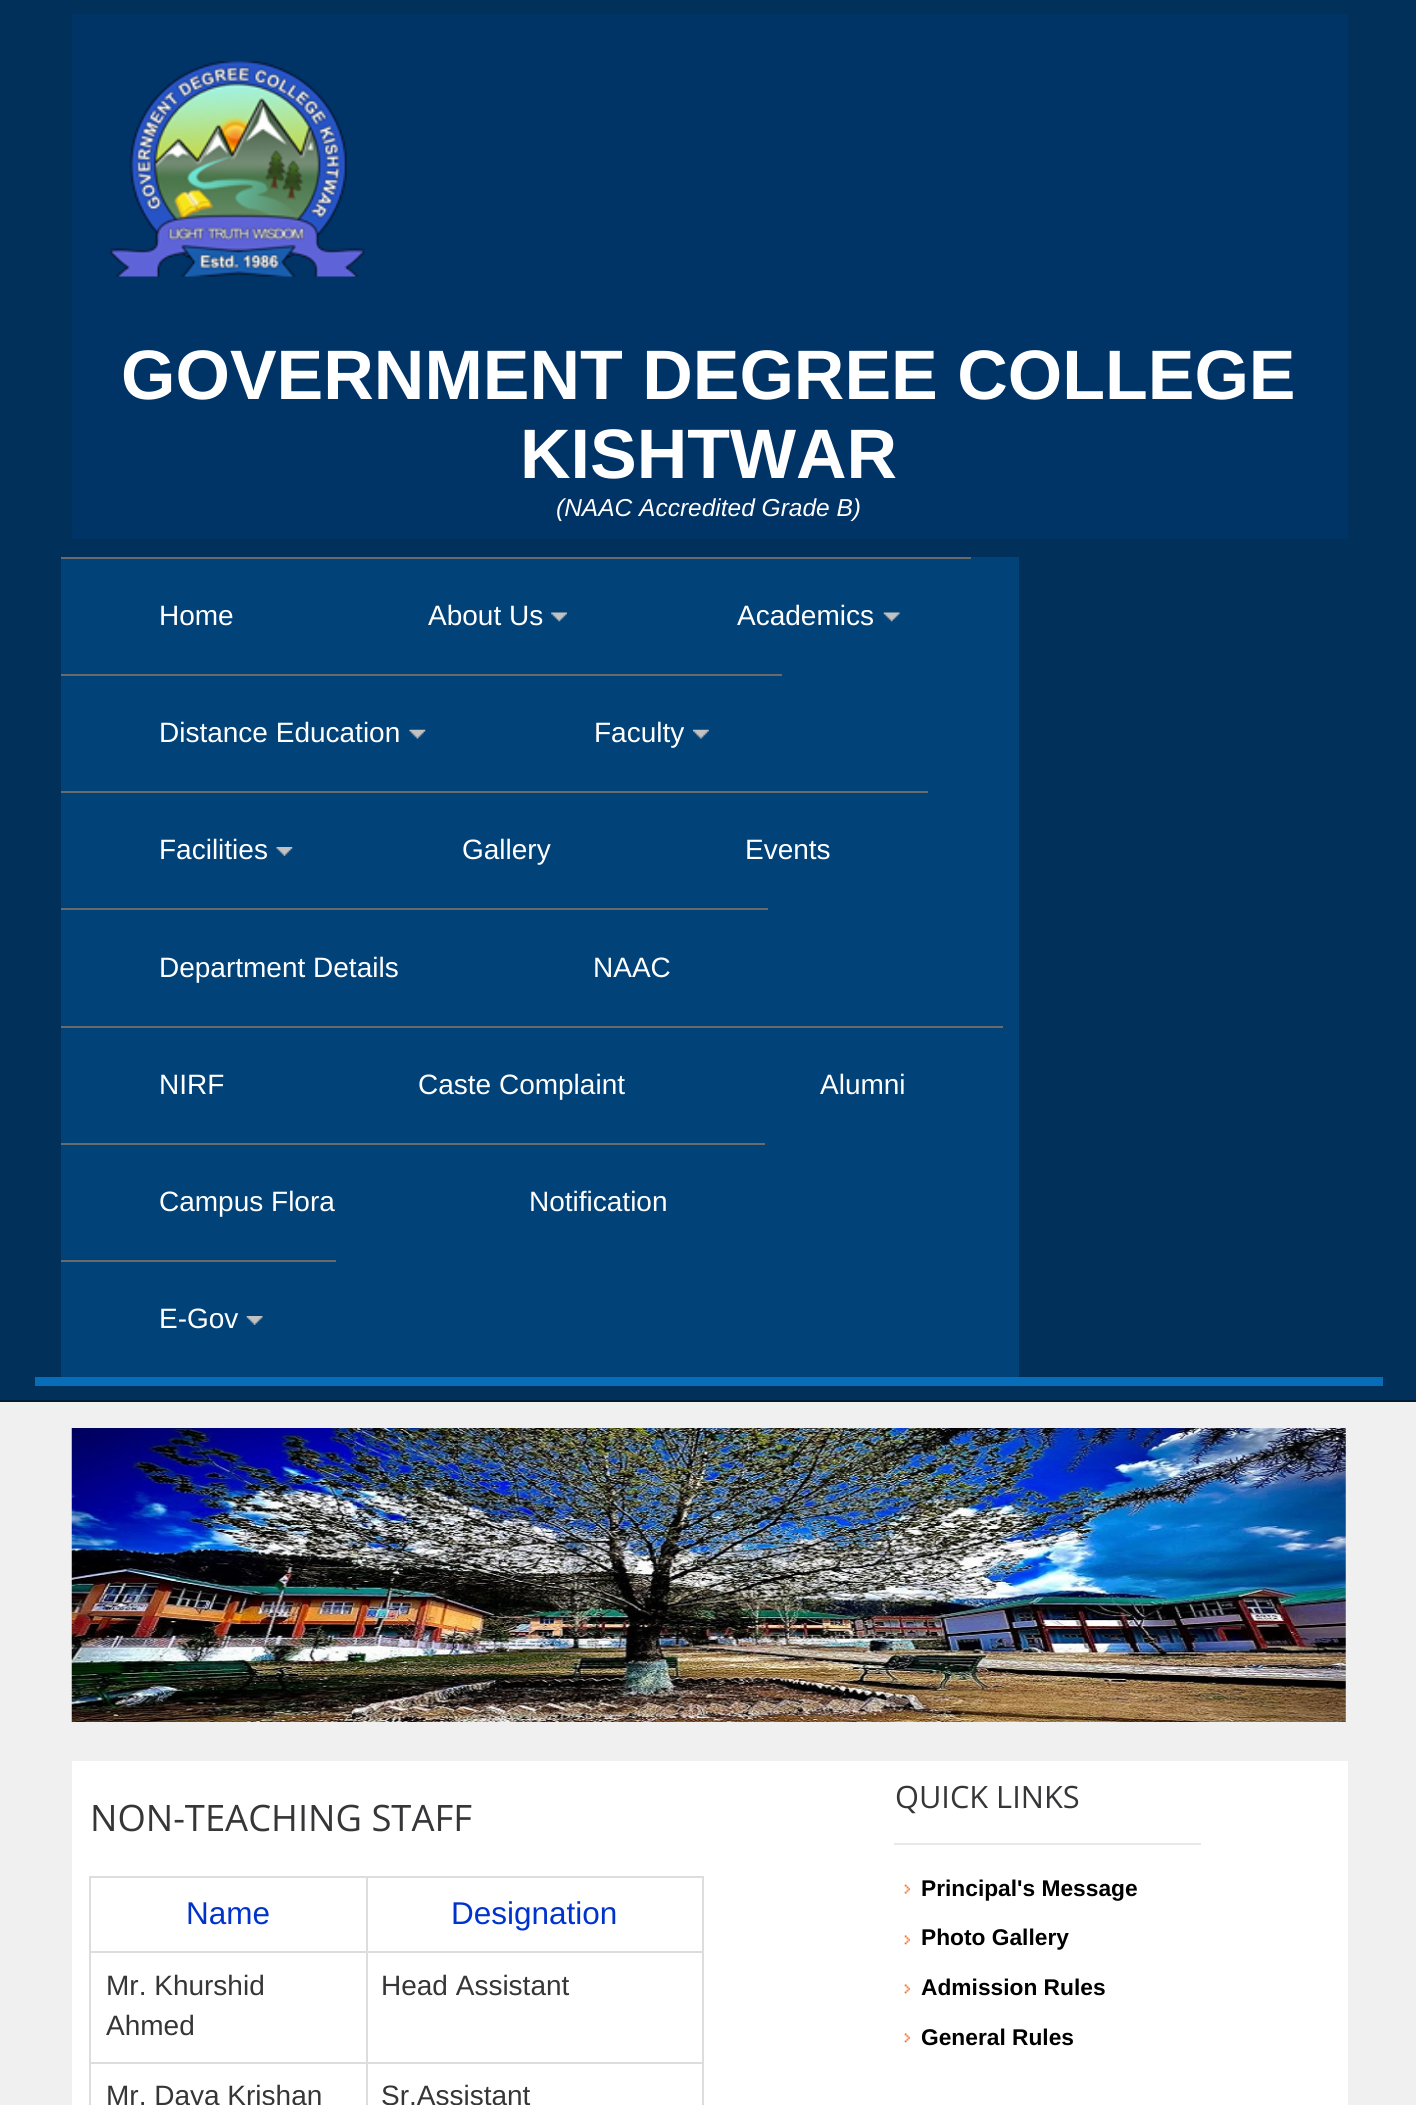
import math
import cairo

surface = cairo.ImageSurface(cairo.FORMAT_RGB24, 1416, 2105)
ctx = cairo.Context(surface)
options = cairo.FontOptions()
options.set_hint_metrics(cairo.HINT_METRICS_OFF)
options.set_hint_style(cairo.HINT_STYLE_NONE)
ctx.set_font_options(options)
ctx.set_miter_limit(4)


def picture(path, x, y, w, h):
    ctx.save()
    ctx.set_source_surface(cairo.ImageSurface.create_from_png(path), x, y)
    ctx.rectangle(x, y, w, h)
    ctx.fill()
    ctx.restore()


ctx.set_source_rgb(0.941, 0.941, 0.941)
ctx.paint()
ctx.set_source_rgb(0.004, 0.192, 0.353)
ctx.rectangle(0, 0, 1416, 1400)
ctx.fill()
ctx.set_source_rgb(0, 0.11, 0.196)
ctx.rectangle(0, 1400, 1416, 2)
ctx.fill()
ctx.set_source_rgb(0, 0.2, 0.4)
ctx.rectangle(72, 14, 1276, 525)
ctx.fill()
picture("img1.png", 110, 61, 255, 216)
ctx.select_font_face("Liberation Sans", cairo.FONT_SLANT_NORMAL, cairo.FONT_WEIGHT_BOLD)
ctx.set_font_size(70)
ctx.set_source_rgb(1, 1, 1)
ctx.move_to(121, 399)
ctx.show_text("GOVERNMENT DEGREE COLLEGE")
ctx.move_to(520, 478)
ctx.show_text("KISHTWAR")
ctx.select_font_face("Liberation Sans", cairo.FONT_SLANT_ITALIC)
ctx.set_font_size(24.5)
ctx.move_to(556, 516)
ctx.show_text("(NAAC Accredited Grade B)")
ctx.set_source_rgb(0.004, 0.259, 0.475)
ctx.rectangle(61, 557, 958, 820)
ctx.fill()
ctx.set_source_rgb(0.416, 0.416, 0.42)
ctx.rectangle(61, 557, 910, 2)
ctx.fill()
ctx.select_font_face("Liberation Sans")
ctx.set_font_size(28)
ctx.set_source_rgb(1, 1, 1)
ctx.move_to(159, 625)
ctx.show_text("Home")
picture("img2.png", 551, 612, 16, 10)
ctx.move_to(428, 625)
ctx.show_text("About Us")
picture("img3.png", 883, 612, 17, 10)
ctx.move_to(737, 625)
ctx.show_text("Academics")
ctx.set_source_rgb(0.416, 0.416, 0.42)
ctx.rectangle(61, 674, 721, 2)
ctx.fill()
picture("img4.png", 409, 729, 17, 10)
ctx.set_source_rgb(1, 1, 1)
ctx.move_to(159, 742)
ctx.show_text("Distance Education")
picture("img5.png", 693, 729, 16, 10)
ctx.move_to(594, 742)
ctx.show_text("Faculty")
ctx.set_source_rgb(0.416, 0.416, 0.42)
ctx.rectangle(61, 791, 867, 2)
ctx.fill()
picture("img6.png", 276, 847, 17, 9)
ctx.set_source_rgb(1, 1, 1)
ctx.move_to(159, 859)
ctx.show_text("Facilities")
ctx.move_to(462, 859)
ctx.show_text("Gallery")
ctx.move_to(745, 859)
ctx.show_text("Events")
ctx.set_source_rgb(0.416, 0.416, 0.42)
ctx.rectangle(61, 908, 707, 2)
ctx.fill()
ctx.set_source_rgb(1, 1, 1)
ctx.move_to(159, 977)
ctx.show_text("Department Details")
ctx.move_to(593, 977)
ctx.show_text("NAAC")
ctx.set_source_rgb(0.416, 0.416, 0.42)
ctx.rectangle(61, 1026, 942, 2)
ctx.fill()
ctx.set_source_rgb(1, 1, 1)
ctx.move_to(159, 1094)
ctx.show_text("NIRF")
ctx.move_to(418, 1094)
ctx.show_text("Caste Complaint")
ctx.move_to(820, 1094)
ctx.show_text("Alumni")
ctx.set_source_rgb(0.416, 0.416, 0.42)
ctx.rectangle(61, 1143, 704, 2)
ctx.fill()
ctx.set_source_rgb(1, 1, 1)
ctx.move_to(159, 1211)
ctx.show_text("Campus Flora")
ctx.move_to(529, 1211)
ctx.show_text("Notification")
ctx.set_source_rgb(0.416, 0.416, 0.42)
ctx.rectangle(61, 1260, 275, 2)
ctx.fill()
picture("img7.png", 246, 1316, 17, 9)
ctx.set_source_rgb(1, 1, 1)
ctx.move_to(159, 1328)
ctx.show_text("E-Gov")
ctx.set_source_rgb(0.035, 0.427, 0.725)
ctx.rectangle(35, 1377, 1348, 9)
ctx.fill()
picture("img8.png", 71, 1428, 1275, 294)
ctx.set_source_rgb(1, 1, 1)
ctx.rectangle(72, 1761, 1276, 344)
ctx.fill()
ctx.select_font_face("Open Sans")
ctx.set_font_size(36.4)
ctx.set_source_rgb(0.212, 0.212, 0.22)
ctx.move_to(90, 1831)
ctx.show_text("NON-TEACHING STAFF")
ctx.set_source_rgb(0.867, 0.867, 0.867)
ctx.rectangle(89, 1876, 615, 2)
ctx.fill()
ctx.rectangle(702, 1876, 2, 229)
ctx.fill()
ctx.rectangle(89, 1876, 2, 229)
ctx.fill()
ctx.select_font_face("Liberation Sans")
ctx.set_font_size(31.5)
ctx.set_source_rgb(0, 0.2, 0.8)
ctx.move_to(186, 1924)
ctx.show_text("Name")
ctx.set_source_rgb(0.867, 0.867, 0.867)
ctx.rectangle(366, 1951, 338, 2)
ctx.fill()
ctx.rectangle(366, 2062, 338, 2)
ctx.fill()
ctx.rectangle(366, 2062, 2, 43)
ctx.fill()
ctx.rectangle(89, 2062, 279, 2)
ctx.fill()
ctx.rectangle(366, 1951, 2, 112)
ctx.fill()
ctx.rectangle(89, 1951, 279, 2)
ctx.fill()
ctx.rectangle(366, 1876, 2, 77)
ctx.fill()
ctx.set_source_rgb(0, 0.2, 0.8)
ctx.move_to(451, 1924)
ctx.show_text("Designation")
ctx.set_font_size(28)
ctx.set_source_rgb(0.212, 0.212, 0.22)
ctx.move_to(106, 1995)
ctx.show_text("Mr. Khurshid")
ctx.move_to(106, 2035)
ctx.show_text("Ahmed")
ctx.move_to(381, 1995)
ctx.show_text("Head Assistant")
ctx.move_to(106, 2105)
ctx.show_text("Mr. Daya Krishan")
ctx.move_to(381, 2105)
ctx.show_text("Sr.Assistant")
ctx.set_source_rgb(0.914, 0.914, 0.914)
ctx.rectangle(894, 1843, 307, 2)
ctx.fill()
ctx.select_font_face("Open Sans")
ctx.set_font_size(30.75)
ctx.set_source_rgb(0.212, 0.212, 0.22)
ctx.move_to(895, 1808)
ctx.show_text("QUICK LINKS")
picture("img9.png", 904, 1884, 6, 10)
ctx.select_font_face("Liberation Sans", cairo.FONT_SLANT_NORMAL, cairo.FONT_WEIGHT_BOLD)
ctx.set_font_size(22.75)
ctx.set_source_rgb(0, 0, 0)
ctx.move_to(921, 1896)
ctx.show_text("Principal's Message")
picture("img10.png", 904, 1935, 6, 10)
ctx.move_to(921, 1945)
ctx.show_text("Photo Gallery")
picture("img10.png", 904, 1984, 6, 10)
ctx.move_to(921, 1995)
ctx.show_text("Admission Rules")
picture("img10.png", 904, 2033, 6, 10)
ctx.move_to(921, 2045)
ctx.show_text("General Rules")
surface.write_to_png("page.png")
